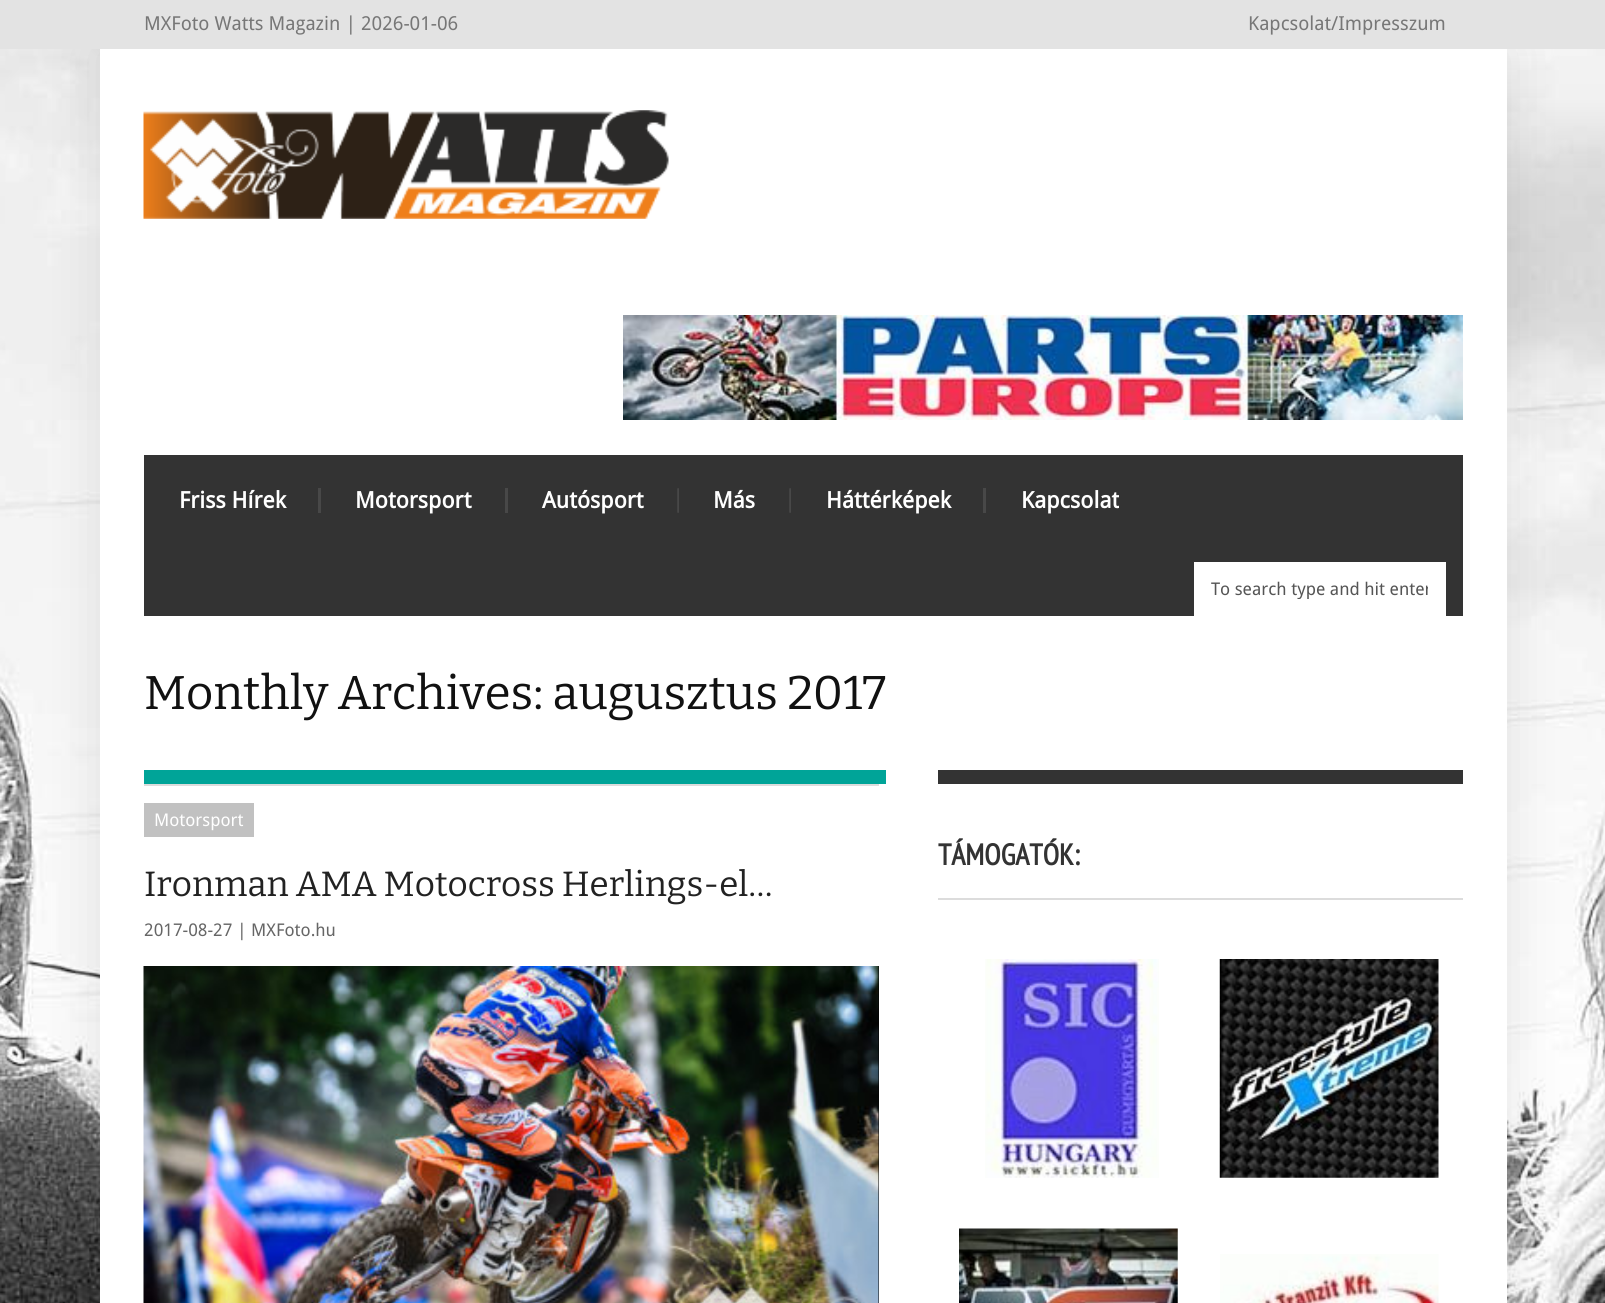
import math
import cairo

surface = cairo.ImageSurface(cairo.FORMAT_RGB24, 1605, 1303)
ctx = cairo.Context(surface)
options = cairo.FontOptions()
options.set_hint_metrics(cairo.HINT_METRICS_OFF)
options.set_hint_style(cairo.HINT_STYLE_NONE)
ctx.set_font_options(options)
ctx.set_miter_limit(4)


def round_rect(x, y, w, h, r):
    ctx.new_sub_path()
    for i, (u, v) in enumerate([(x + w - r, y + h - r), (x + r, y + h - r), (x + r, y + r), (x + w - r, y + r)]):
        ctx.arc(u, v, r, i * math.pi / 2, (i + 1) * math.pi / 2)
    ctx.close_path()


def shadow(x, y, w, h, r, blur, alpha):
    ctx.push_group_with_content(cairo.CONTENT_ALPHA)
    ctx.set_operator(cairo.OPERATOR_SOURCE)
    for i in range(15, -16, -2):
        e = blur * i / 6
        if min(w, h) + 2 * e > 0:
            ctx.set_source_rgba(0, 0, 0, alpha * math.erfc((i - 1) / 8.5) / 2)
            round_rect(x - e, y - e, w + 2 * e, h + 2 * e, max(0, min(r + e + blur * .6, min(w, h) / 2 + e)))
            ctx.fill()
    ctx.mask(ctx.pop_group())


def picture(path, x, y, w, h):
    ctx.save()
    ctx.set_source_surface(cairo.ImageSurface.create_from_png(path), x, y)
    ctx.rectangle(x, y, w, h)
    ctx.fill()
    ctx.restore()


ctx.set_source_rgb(1, 1, 1)
ctx.paint()
picture("img1.png", 0, 49, 1605, 1254)
ctx.set_source_rgb(0, 0, 0)
shadow(100, 49, 1407, 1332, 0, 26, 0.1)
ctx.set_source_rgb(0.89, 0.89, 0.89)
ctx.rectangle(0, 0, 1605, 49)
ctx.fill()
ctx.select_font_face("Droid Sans")
ctx.set_font_size(19.25)
ctx.set_source_rgb(0.467, 0.467, 0.467)
ctx.move_to(144, 30)
ctx.show_text("MXFoto Watts Magazin | 2026-01-06")
ctx.move_to(1248, 30)
ctx.show_text("Kapcsolat/Impresszum")
ctx.set_source_rgb(1, 1, 1)
ctx.rectangle(100, 49, 1407, 1254)
ctx.fill()
picture("img2.png", 143, 110, 526, 109)
picture("img3.png", 623, 315, 840, 105)
ctx.set_source_rgb(0.2, 0.2, 0.2)
ctx.rectangle(144, 455, 1319, 161)
ctx.fill()
ctx.set_source_rgb(0.282, 0.282, 0.282)
ctx.rectangle(318, 488, 3, 25)
ctx.fill()
ctx.select_font_face("Droid Sans", cairo.FONT_SLANT_NORMAL, cairo.FONT_WEIGHT_BOLD)
ctx.set_font_size(22.75)
ctx.set_source_rgb(1, 1, 1)
ctx.move_to(179, 508)
ctx.show_text("Friss Hírek")
ctx.set_source_rgb(0.282, 0.282, 0.282)
ctx.rectangle(505, 488, 3, 25)
ctx.fill()
ctx.set_source_rgb(1, 1, 1)
ctx.move_to(355, 508)
ctx.show_text("Motorsport")
picture("img4.png", 677, 488, 2, 25)
ctx.move_to(542, 508)
ctx.show_text("Autósport")
picture("img4.png", 789, 488, 2, 25)
ctx.move_to(713, 508)
ctx.show_text("Más")
ctx.set_source_rgb(0.282, 0.282, 0.282)
ctx.rectangle(983, 488, 3, 25)
ctx.fill()
ctx.set_source_rgb(1, 1, 1)
ctx.move_to(826, 508)
ctx.show_text("Háttérképek")
ctx.move_to(1021, 508)
ctx.show_text("Kapcsolat")
ctx.rectangle(1194, 562, 252, 54)
ctx.fill()
ctx.save()
ctx.rectangle(1211, 579, 217, 20)
ctx.clip()
ctx.select_font_face("Droid Sans")
ctx.set_font_size(17.5)
ctx.set_source_rgb(0.333, 0.333, 0.333)
ctx.move_to(1211, 595)
ctx.show_text("To search type and hit enter")
ctx.restore()
ctx.set_source_rgb(0, 0.643, 0.596)
ctx.rectangle(144, 770, 742, 14)
ctx.fill()
ctx.select_font_face("Bitter Thin")
ctx.set_font_size(47.25)
ctx.set_source_rgb(0.067, 0.067, 0.067)
ctx.move_to(144, 709)
ctx.show_text("Monthly Archives: augusztus 2017")
ctx.set_source_rgb(0.863, 0.863, 0.863)
ctx.rectangle(144, 784, 735, 2)
ctx.fill()
ctx.set_source_rgb(0.757, 0.757, 0.757)
ctx.rectangle(144, 803, 110, 34)
ctx.fill()
ctx.select_font_face("Droid Sans")
ctx.set_font_size(17.5)
ctx.set_source_rgb(1, 1, 1)
ctx.move_to(154, 826)
ctx.show_text("Motorsport")
ctx.select_font_face("Bitter Thin")
ctx.set_font_size(35)
ctx.set_source_rgb(0.133, 0.133, 0.133)
ctx.move_to(144, 896)
ctx.show_text("Ironman AMA Motocross Herlings-el…")
ctx.select_font_face("Droid Sans")
ctx.set_font_size(17.5)
ctx.set_source_rgb(0.4, 0.4, 0.4)
ctx.move_to(144, 936)
ctx.show_text("2017-08-27 | MXFoto.hu")
ctx.set_source_rgb(0, 0, 0)
ctx.rectangle(878, 966, 1, 337)
ctx.fill()
picture("img5.png", 143, 966, 736, 337)
ctx.set_source_rgb(0.2, 0.2, 0.2)
ctx.rectangle(938, 770, 525, 14)
ctx.fill()
ctx.set_source_rgb(0.863, 0.863, 0.863)
ctx.rectangle(938, 898, 525, 2)
ctx.fill()
ctx.select_font_face("PT Sans Narrow", cairo.FONT_SLANT_NORMAL, cairo.FONT_WEIGHT_BOLD)
ctx.set_font_size(29.75)
ctx.set_source_rgb(0.2, 0.2, 0.2)
ctx.move_to(938, 865)
ctx.show_text("TÁMOGATÓK:")
picture("img6.png", 985, 959, 174, 219)
picture("img7.png", 1219, 959, 220, 219)
picture("img8.png", 959, 1228, 219, 75)
picture("img9.png", 1220, 1254, 219, 49)
surface.write_to_png("page.png")
